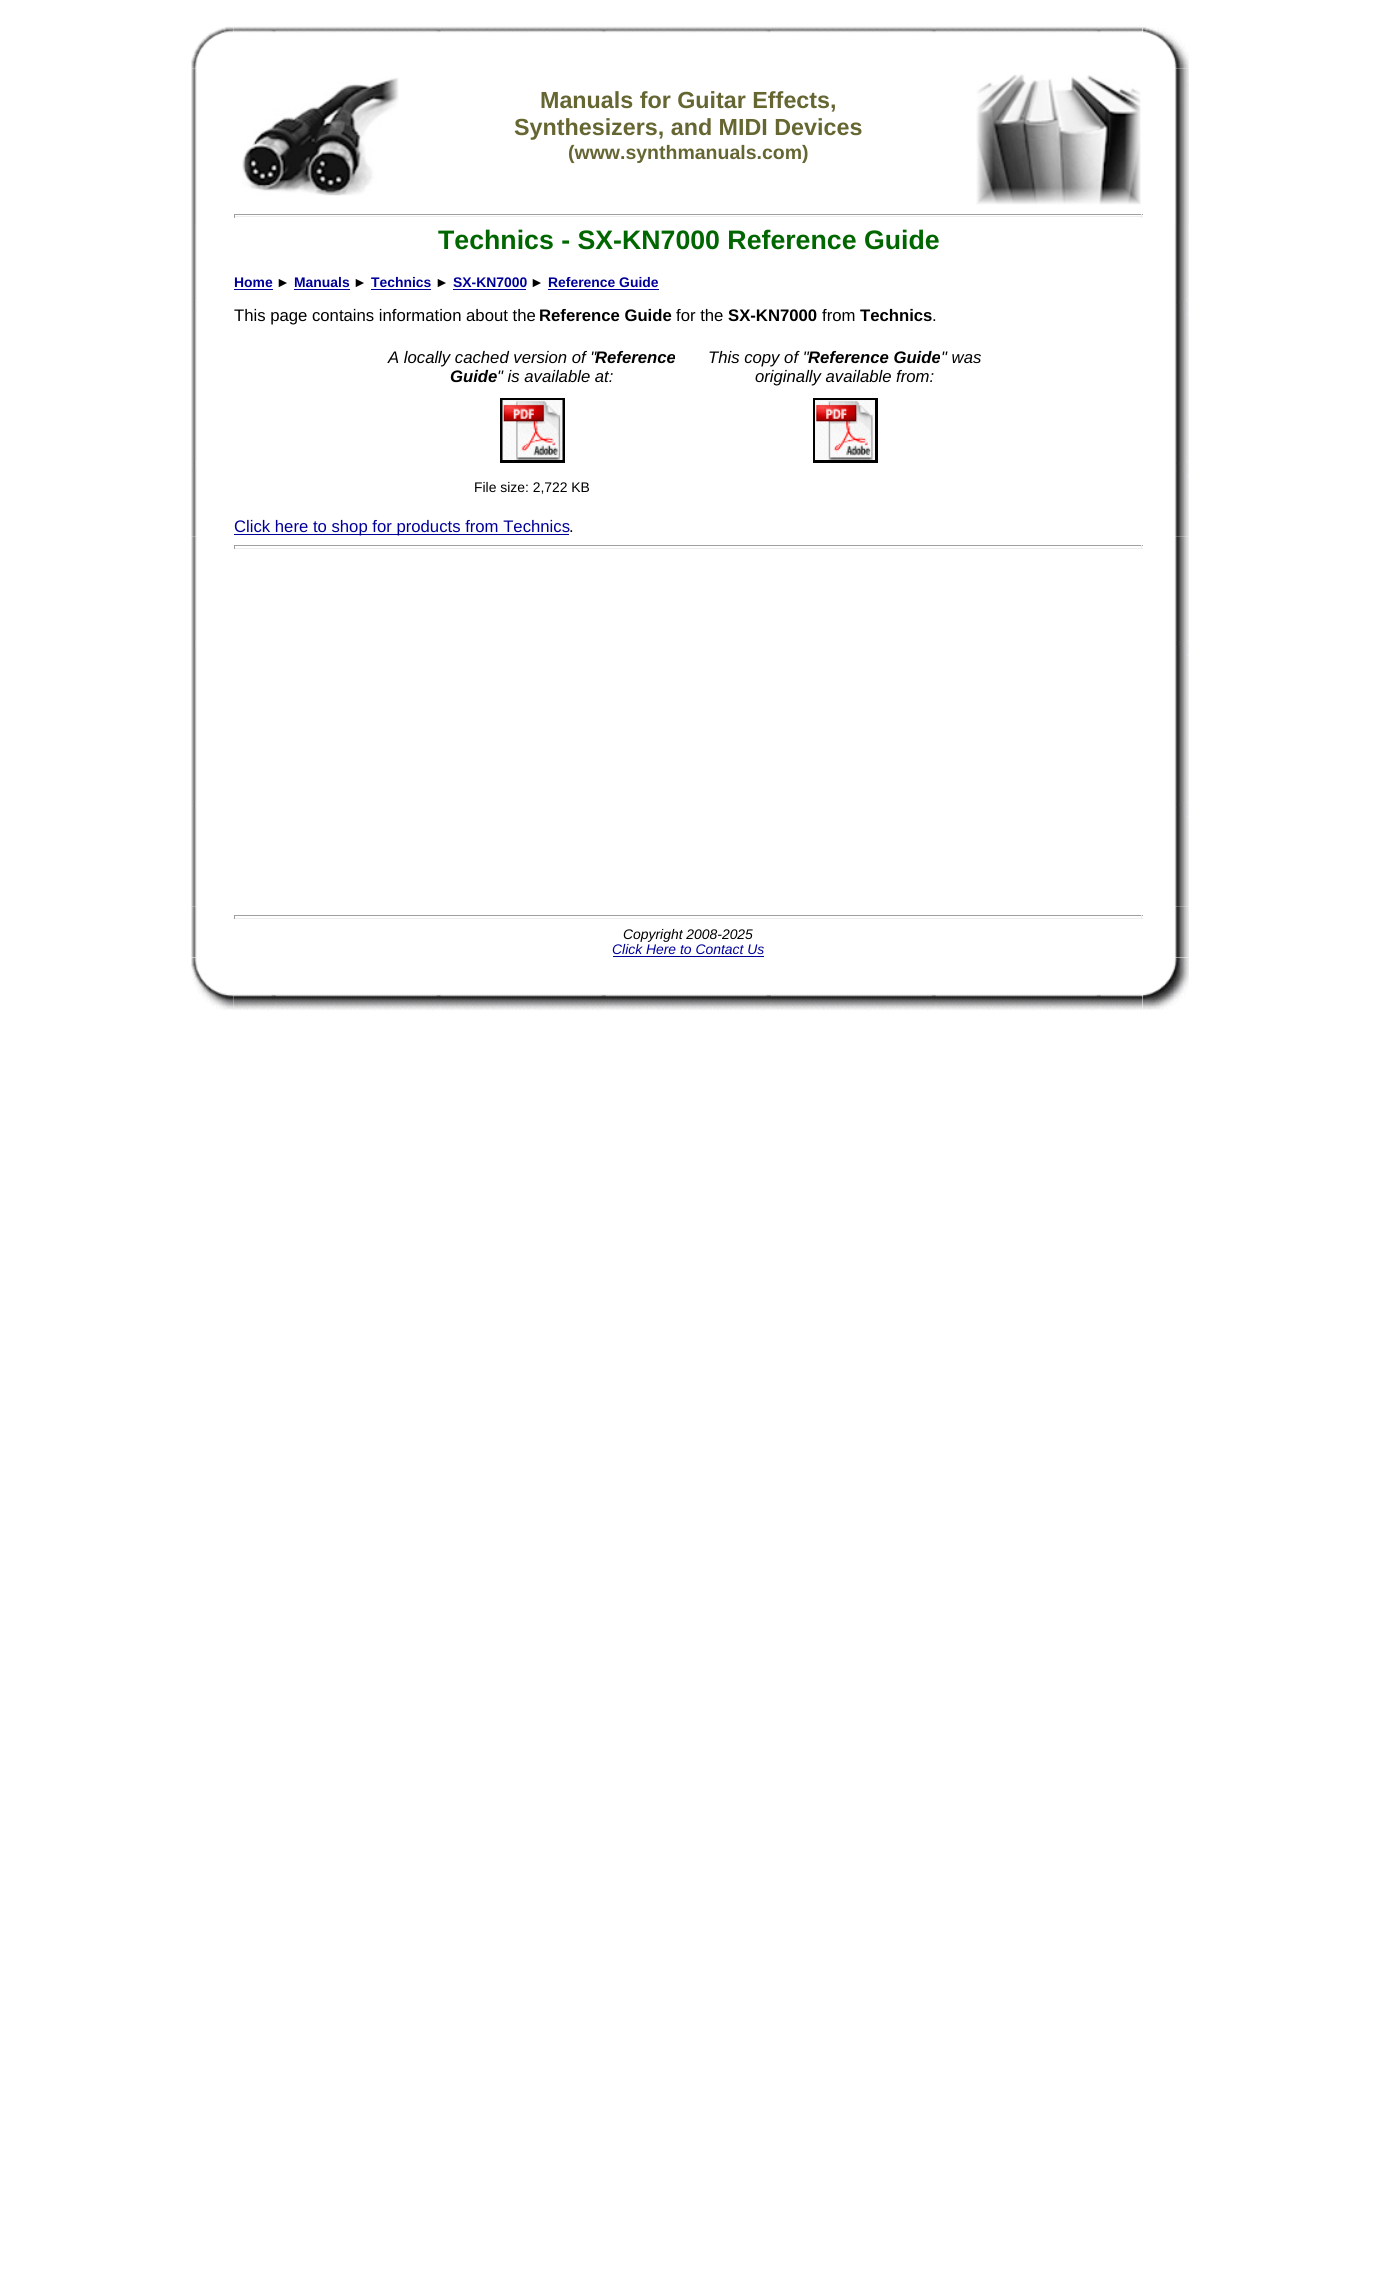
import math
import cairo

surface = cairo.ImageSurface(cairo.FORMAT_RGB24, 1379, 2272)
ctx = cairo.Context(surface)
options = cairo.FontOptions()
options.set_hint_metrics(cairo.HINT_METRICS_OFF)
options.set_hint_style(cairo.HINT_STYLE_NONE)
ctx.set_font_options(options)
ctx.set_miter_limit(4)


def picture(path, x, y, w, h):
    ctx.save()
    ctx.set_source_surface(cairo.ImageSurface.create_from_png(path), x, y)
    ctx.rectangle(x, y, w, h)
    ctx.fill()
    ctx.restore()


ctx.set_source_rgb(1, 1, 1)
ctx.paint()
picture("img1.png", 191, 26, 43, 43)
picture("img2.png", 234, 26, 909, 7)
picture("img3.png", 1143, 26, 46, 43)
picture("img4.png", 191, 69, 6, 156)
picture("img5.png", 242, 77, 157, 119)
ctx.select_font_face("Liberation Sans", cairo.FONT_SLANT_NORMAL, cairo.FONT_WEIGHT_BOLD)
ctx.set_font_size(23.3)
ctx.set_source_rgb(0.4, 0.4, 0.2)
ctx.move_to(540, 108)
ctx.show_text("Manuals for Guitar Effects,")
ctx.move_to(514, 135)
ctx.show_text("Synthesizers, and MIDI Devices")
ctx.set_font_size(19.5)
ctx.move_to(568, 159)
ctx.show_text("(www.synthmanuals.com)")
picture("img6.png", 976, 74, 165, 131)
ctx.set_source_rgb(0.624, 0.624, 0.624)
ctx.rectangle(234, 214, 909, 1)
ctx.fill()
ctx.set_source_rgb(0.933, 0.933, 0.933)
ctx.rectangle(1141, 214, 1, 4)
ctx.fill()
ctx.rectangle(234, 216, 909, 1)
ctx.fill()
ctx.set_source_rgb(0.624, 0.624, 0.624)
ctx.rectangle(234, 214, 1, 4)
ctx.fill()
picture("img7.png", 1174, 69, 15, 156)
picture("img8.png", 191, 225, 6, 311)
ctx.set_font_size(26.7)
ctx.set_source_rgb(0, 0.4, 0)
ctx.move_to(438, 249)
ctx.show_text("Technics - SX-KN7000 Reference Guide")
ctx.set_font_size(13.9)
ctx.set_source_rgb(0, 0, 0.6)
ctx.move_to(234, 287)
ctx.show_text("Home")
ctx.rectangle(234, 289, 39, 1)
ctx.fill()
ctx.set_source_rgb(0, 0, 0)
ctx.move_to(276, 287)
ctx.show_text("►")
ctx.set_source_rgb(0, 0, 0.6)
ctx.move_to(294, 287)
ctx.show_text("Manuals")
ctx.rectangle(294, 289, 56, 1)
ctx.fill()
ctx.set_source_rgb(0, 0, 0)
ctx.move_to(353, 287)
ctx.show_text("►")
ctx.set_source_rgb(0, 0, 0.6)
ctx.move_to(371, 287)
ctx.show_text("Technics")
ctx.rectangle(371, 289, 60, 1)
ctx.fill()
ctx.set_source_rgb(0, 0, 0)
ctx.move_to(435, 287)
ctx.show_text("►")
ctx.set_source_rgb(0, 0, 0.6)
ctx.move_to(453, 287)
ctx.show_text("SX-KN7000")
ctx.rectangle(453, 289, 73, 1)
ctx.fill()
ctx.set_source_rgb(0, 0, 0)
ctx.move_to(530, 287)
ctx.show_text("►")
ctx.set_source_rgb(0, 0, 0.6)
ctx.move_to(548, 287)
ctx.show_text("Reference Guide")
ctx.rectangle(548, 289, 111, 1)
ctx.fill()
ctx.select_font_face("Liberation Sans")
ctx.set_font_size(16.7)
ctx.set_source_rgb(0, 0, 0)
ctx.move_to(234, 321)
ctx.show_text("This page contains information about the")
ctx.select_font_face("Liberation Sans", cairo.FONT_SLANT_NORMAL, cairo.FONT_WEIGHT_BOLD)
ctx.move_to(539, 321)
ctx.show_text("Reference Guide")
ctx.select_font_face("Liberation Sans")
ctx.move_to(676, 321)
ctx.show_text("for the")
ctx.select_font_face("Liberation Sans", cairo.FONT_SLANT_NORMAL, cairo.FONT_WEIGHT_BOLD)
ctx.move_to(728, 321)
ctx.show_text("SX-KN7000")
ctx.select_font_face("Liberation Sans")
ctx.move_to(822, 321)
ctx.show_text("from")
ctx.select_font_face("Liberation Sans", cairo.FONT_SLANT_NORMAL, cairo.FONT_WEIGHT_BOLD)
ctx.move_to(860, 321)
ctx.show_text("Technics")
ctx.select_font_face("Liberation Sans")
ctx.move_to(932, 321)
ctx.show_text(".")
ctx.select_font_face("Liberation Sans", cairo.FONT_SLANT_ITALIC)
ctx.move_to(388, 363)
ctx.show_text("A locally cached version of \"")
ctx.select_font_face("Liberation Sans", cairo.FONT_SLANT_ITALIC, cairo.FONT_WEIGHT_BOLD)
ctx.move_to(595, 363)
ctx.show_text("Reference")
ctx.move_to(450, 382)
ctx.show_text("Guide")
ctx.select_font_face("Liberation Sans", cairo.FONT_SLANT_ITALIC)
ctx.move_to(497, 382)
ctx.show_text("\" is available at:")
ctx.move_to(708, 363)
ctx.show_text("This copy of \"")
ctx.select_font_face("Liberation Sans", cairo.FONT_SLANT_ITALIC, cairo.FONT_WEIGHT_BOLD)
ctx.move_to(808, 363)
ctx.show_text("Reference Guide")
ctx.select_font_face("Liberation Sans", cairo.FONT_SLANT_ITALIC)
ctx.move_to(941, 363)
ctx.show_text("\" was")
ctx.move_to(755, 382)
ctx.show_text("originally available from:")
ctx.rectangle(814.5, 399.5, 62, 62)
ctx.set_line_width(3)
ctx.stroke()
picture("img9.png", 815, 400, 60, 60)
ctx.rectangle(501.5, 399.5, 62, 62)
ctx.stroke()
picture("img10.png", 502, 400, 61, 60)
ctx.select_font_face("Liberation Sans")
ctx.set_font_size(13.9)
ctx.move_to(474, 492)
ctx.show_text("File size: 2,722 KB")
ctx.set_source_rgb(0, 0, 0.6)
ctx.rectangle(234, 534, 335, 1)
ctx.fill()
ctx.set_font_size(16.7)
ctx.move_to(234, 532)
ctx.show_text("Click here to shop for products from Technics")
ctx.set_source_rgb(0, 0, 0)
ctx.move_to(569, 532)
ctx.show_text(".")
picture("img11.png", 1174, 225, 15, 311)
picture("img12.png", 191, 536, 6, 370)
ctx.set_source_rgb(0.624, 0.624, 0.624)
ctx.rectangle(234, 545, 909, 1)
ctx.fill()
ctx.set_source_rgb(0.933, 0.933, 0.933)
ctx.rectangle(1141, 545, 1, 4)
ctx.fill()
ctx.rectangle(234, 548, 909, 1)
ctx.fill()
ctx.set_source_rgb(0.624, 0.624, 0.624)
ctx.rectangle(234, 545, 1, 4)
ctx.fill()
picture("img13.png", 1174, 536, 15, 370)
picture("img14.png", 191, 906, 6, 52)
ctx.rectangle(234, 915, 909, 1)
ctx.fill()
ctx.set_source_rgb(0.933, 0.933, 0.933)
ctx.rectangle(1141, 915, 1, 4)
ctx.fill()
ctx.rectangle(234, 918, 909, 1)
ctx.fill()
ctx.set_source_rgb(0.624, 0.624, 0.624)
ctx.rectangle(234, 915, 1, 4)
ctx.fill()
ctx.select_font_face("Liberation Sans", cairo.FONT_SLANT_ITALIC)
ctx.set_font_size(13.9)
ctx.set_source_rgb(0, 0, 0)
ctx.move_to(623, 939)
ctx.show_text("Copyright 2008-2025")
ctx.set_source_rgb(0, 0, 0.6)
ctx.move_to(612, 954)
ctx.show_text("Click Here to Contact Us")
ctx.rectangle(613, 956, 151, 1)
ctx.fill()
picture("img15.png", 1174, 906, 15, 52)
picture("img16.png", 191, 958, 43, 52)
picture("img17.png", 234, 994, 909, 17)
picture("img18.png", 1143, 958, 46, 52)
surface.write_to_png("page.png")
